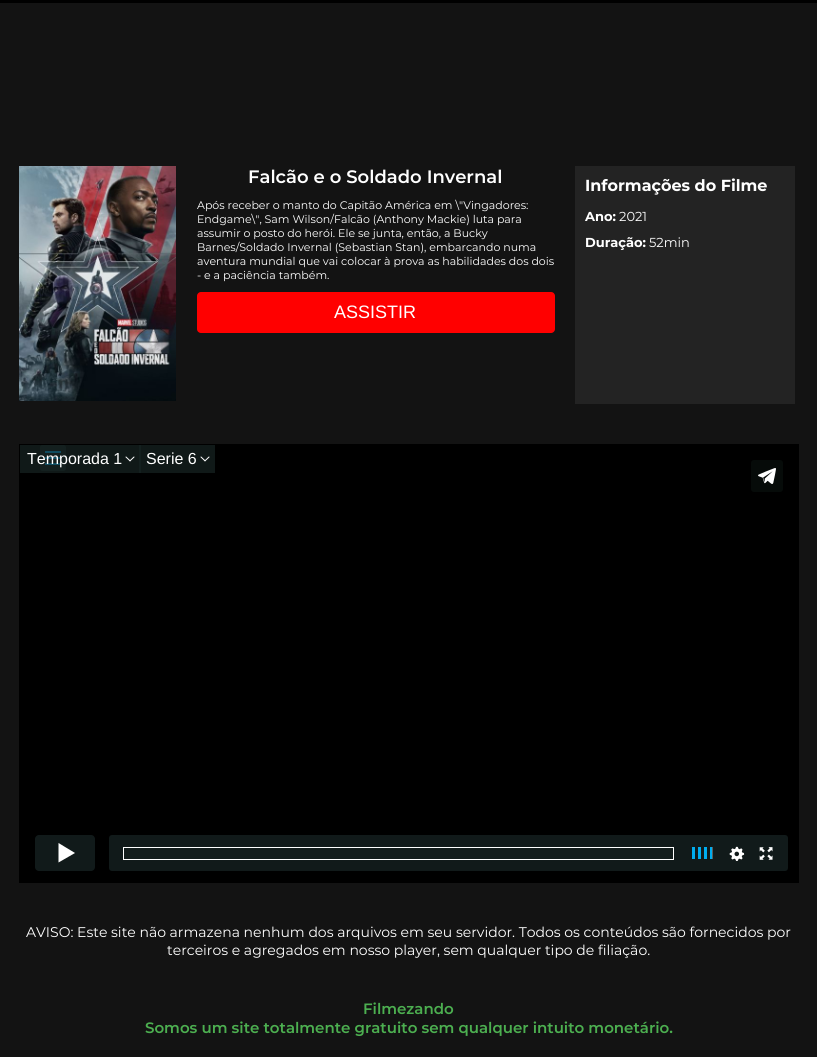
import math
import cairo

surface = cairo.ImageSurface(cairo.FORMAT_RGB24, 817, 1057)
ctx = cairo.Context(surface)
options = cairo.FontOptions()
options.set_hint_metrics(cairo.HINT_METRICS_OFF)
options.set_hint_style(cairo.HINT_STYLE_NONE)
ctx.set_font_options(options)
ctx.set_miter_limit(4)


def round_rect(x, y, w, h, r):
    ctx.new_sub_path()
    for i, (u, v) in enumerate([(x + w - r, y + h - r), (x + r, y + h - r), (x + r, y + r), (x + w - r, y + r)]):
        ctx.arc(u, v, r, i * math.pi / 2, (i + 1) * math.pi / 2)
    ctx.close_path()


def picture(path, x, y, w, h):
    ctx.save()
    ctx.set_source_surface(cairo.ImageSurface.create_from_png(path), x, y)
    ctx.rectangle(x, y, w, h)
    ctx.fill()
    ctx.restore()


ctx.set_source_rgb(0.078, 0.078, 0.078)
ctx.paint()
ctx.set_source_rgb(0, 0, 0)
ctx.rectangle(0, 0, 817, 3)
ctx.fill()
picture("img1.png", 19, 166, 157, 235)
ctx.select_font_face("Montserrat SemiBold")
ctx.set_font_size(18)
ctx.set_source_rgb(1, 1, 1)
ctx.move_to(248, 183)
ctx.show_text("Falcão e o Soldado Invernal")
ctx.select_font_face("Montserrat")
ctx.set_font_size(11)
ctx.move_to(197, 209)
ctx.show_text("Após receber o manto do Capitão América em \\\"Vingadores:")
ctx.move_to(197, 223)
ctx.show_text("Endgame\\\", Sam Wilson/Falcão (Anthony Mackie) luta para")
ctx.move_to(197, 237)
ctx.show_text("assumir o posto do herói. Ele se junta, então, a Bucky")
ctx.move_to(197, 251)
ctx.show_text("Barnes/Soldado Invernal (Sebastian Stan), embarcando numa")
ctx.move_to(197, 265)
ctx.show_text("aventura mundial que vai colocar à prova as habilidades dos dois")
ctx.move_to(197, 279)
ctx.show_text("- e a paciência também.")
ctx.set_source_rgb(1, 0, 0)
round_rect(197, 292, 358, 41, 4)
ctx.fill()
ctx.select_font_face("Liberation Sans")
ctx.set_font_size(18)
ctx.set_source_rgb(1, 1, 1)
ctx.move_to(334, 318)
ctx.show_text("ASSISTIR")
ctx.set_source_rgb(0.137, 0.137, 0.137)
ctx.rectangle(575, 166, 220, 238)
ctx.fill()
ctx.select_font_face("Montserrat", cairo.FONT_SLANT_NORMAL, cairo.FONT_WEIGHT_BOLD)
ctx.set_font_size(16)
ctx.set_source_rgb(1, 1, 1)
ctx.move_to(585, 191)
ctx.show_text("Informações do Filme")
ctx.set_font_size(13)
ctx.move_to(585, 221)
ctx.show_text("Ano:")
ctx.select_font_face("Montserrat")
ctx.move_to(619, 221)
ctx.show_text("2021")
ctx.select_font_face("Montserrat", cairo.FONT_SLANT_NORMAL, cairo.FONT_WEIGHT_BOLD)
ctx.move_to(585, 247)
ctx.show_text("Duração:")
ctx.select_font_face("Montserrat")
ctx.move_to(649, 247)
ctx.show_text("52min")
ctx.rectangle(19.5, 444.5, 779, 438)
ctx.set_source_rgb(0, 0, 0)
ctx.set_line_width(1)
ctx.stroke()
ctx.rectangle(20, 445, 778, 437)
ctx.fill()
ctx.set_source_rgb(0.063, 0.098, 0.094)
ctx.rectangle(20, 445, 119, 28)
ctx.fill()
ctx.set_source_rgb(0.082, 0.125, 0.122)
round_rect(40, 445, 26, 26, 2.5)
ctx.fill()
picture("img2.png", 45, 451, 16, 14)
ctx.select_font_face("Liberation Sans")
ctx.set_font_size(16)
ctx.set_source_rgb(1, 1, 1)
ctx.move_to(27, 464)
ctx.show_text("Temporada 1")
picture("img3.png", 125, 456, 10, 6)
ctx.set_source_rgb(0.063, 0.098, 0.094)
ctx.rectangle(141, 445, 74, 28)
ctx.fill()
ctx.set_source_rgb(0.082, 0.125, 0.122)
ctx.rectangle(139, 445, 2, 28)
ctx.fill()
ctx.set_source_rgb(1, 1, 1)
ctx.move_to(146, 464)
ctx.show_text("Serie 6")
picture("img4.png", 200, 456, 10, 6)
ctx.set_source_rgb(0.027, 0.043, 0.039)
round_rect(751, 460, 32, 32, 3)
ctx.fill()
picture("img5.png", 758, 468, 18, 16)
ctx.set_source_rgb(0.067, 0.102, 0.102)
round_rect(35, 835, 60, 36, 4)
ctx.fill()
ctx.set_source_rgb(1, 1, 1)
ctx.new_path()
ctx.move_to(58.5, 843)
ctx.line_to(58.5, 862.5)
ctx.line_to(75, 853)
ctx.line_to(58.5, 843)
ctx.fill()
ctx.set_source_rgb(0.067, 0.102, 0.102)
round_rect(109, 835, 679, 36, 3)
ctx.fill()
ctx.set_source_rgb(0.075, 0.114, 0.11)
ctx.rectangle(123.5, 847.5, 550, 12)
ctx.fill_preserve()
ctx.set_source_rgb(1, 1, 1)
ctx.stroke()
ctx.set_source_rgb(0, 0.678, 0.937)
ctx.rectangle(692, 847, 3, 12)
ctx.fill()
ctx.rectangle(698, 847, 3, 12)
ctx.fill()
ctx.rectangle(704, 847, 3, 12)
ctx.fill()
ctx.rectangle(710, 847, 2, 12)
ctx.fill()
ctx.set_source_rgb(0.345, 0.373, 0.373)
ctx.rectangle(712, 847, 1, 12)
ctx.fill()
picture("img6.png", 729, 846, 16, 15)
picture("img7.png", 759, 847, 14, 13)
ctx.select_font_face("Montserrat")
ctx.set_font_size(14)
ctx.set_source_rgb(1, 1, 1)
ctx.move_to(26, 937)
ctx.show_text("AVISO: Este site não armazena nenhum dos arquivos em seu servidor. Todos os conteúdos são fornecidos por")
ctx.move_to(167, 955)
ctx.show_text("terceiros e agregados em nosso player, sem qualquer tipo de filiação.")
ctx.select_font_face("Montserrat SemiBold")
ctx.set_font_size(15)
ctx.set_source_rgb(0.298, 0.686, 0.314)
ctx.move_to(363, 1014)
ctx.show_text("Filmezando")
ctx.move_to(145, 1033)
ctx.show_text("Somos um site totalmente gratuito sem qualquer intuito monetário.")
surface.write_to_png("page.png")
